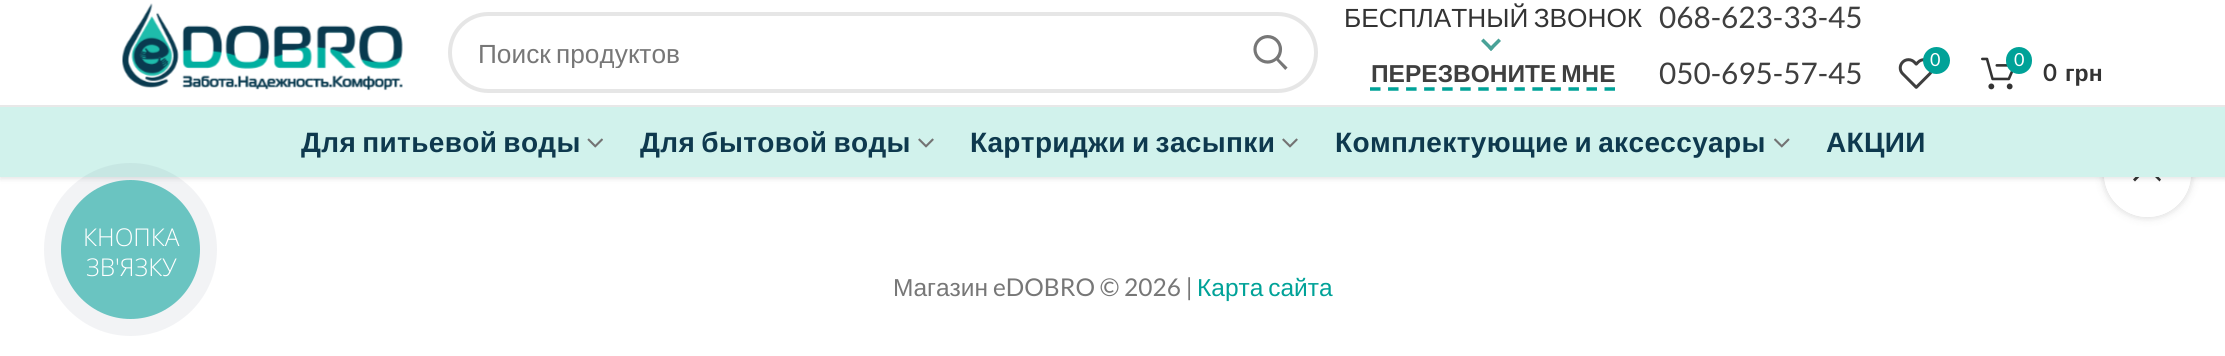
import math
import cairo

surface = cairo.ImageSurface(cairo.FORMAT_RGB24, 2225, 356)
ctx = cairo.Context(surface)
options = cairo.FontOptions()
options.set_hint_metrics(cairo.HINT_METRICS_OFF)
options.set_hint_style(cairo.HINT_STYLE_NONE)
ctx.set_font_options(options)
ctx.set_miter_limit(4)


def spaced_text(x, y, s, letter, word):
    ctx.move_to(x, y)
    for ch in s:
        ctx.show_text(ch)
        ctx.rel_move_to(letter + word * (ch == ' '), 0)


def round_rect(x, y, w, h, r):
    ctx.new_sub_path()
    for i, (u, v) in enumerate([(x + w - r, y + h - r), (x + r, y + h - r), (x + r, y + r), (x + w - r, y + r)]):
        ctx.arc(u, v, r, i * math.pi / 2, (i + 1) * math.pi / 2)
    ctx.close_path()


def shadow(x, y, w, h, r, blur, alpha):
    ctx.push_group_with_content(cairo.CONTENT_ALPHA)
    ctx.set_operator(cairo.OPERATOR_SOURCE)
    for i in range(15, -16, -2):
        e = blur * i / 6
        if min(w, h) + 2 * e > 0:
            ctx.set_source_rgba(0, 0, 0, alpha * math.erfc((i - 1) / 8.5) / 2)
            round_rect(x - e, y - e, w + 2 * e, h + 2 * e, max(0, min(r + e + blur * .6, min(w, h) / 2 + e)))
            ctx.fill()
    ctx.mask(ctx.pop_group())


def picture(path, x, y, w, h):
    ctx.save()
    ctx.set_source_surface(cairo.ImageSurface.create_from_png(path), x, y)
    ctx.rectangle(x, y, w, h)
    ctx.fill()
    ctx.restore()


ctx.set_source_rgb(1, 1, 1)
ctx.paint()
ctx.save()
ctx.set_fill_rule(cairo.FILL_RULE_EVEN_ODD)
ctx.new_path()
ctx.move_to(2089, 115)
ctx.line_to(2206, 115)
ctx.line_to(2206, 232)
ctx.line_to(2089, 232)
ctx.close_path()
ctx.move_to(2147.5, 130)
ctx.curve_to(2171.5, 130, 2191, 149.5, 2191, 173.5)
ctx.curve_to(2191, 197.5, 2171.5, 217, 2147.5, 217)
ctx.curve_to(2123.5, 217, 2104, 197.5, 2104, 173.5)
ctx.curve_to(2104, 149.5, 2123.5, 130, 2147.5, 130)
ctx.close_path()
ctx.clip()
ctx.set_source_rgb(0, 0, 0)
shadow(2104, 130, 87, 87, 43.5, 4.5, 0.17)
ctx.restore()
ctx.set_source_rgba(1, 1, 1, 0.9)
ctx.arc(2147.5, 173.5, 43.5, 0, 2 * math.pi)
ctx.fill()
ctx.set_source_rgb(0.2, 0.2, 0.2)
ctx.new_path()
ctx.move_to(2147, 165)
ctx.line_to(2133, 179.5)
ctx.line_to(2135, 181.5)
ctx.line_to(2147, 169)
ctx.line_to(2159.5, 181.5)
ctx.line_to(2161, 179.5)
ctx.close_path()
ctx.fill()
ctx.set_source_rgb(0, 0, 0)
shadow(0, 2, 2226, 177, 0, 2.5, 0.1)
ctx.set_source_rgb(1, 1, 1)
ctx.rectangle(0, 0, 2225, 105)
ctx.fill()
ctx.set_source_rgb(0.91, 0.91, 0.91)
ctx.rectangle(0, 105, 2225, 2)
ctx.fill()
picture("img1.png", 122, 3, 281, 88)
round_rect(450, 14, 866, 77, 38.5)
ctx.set_source_rgb(0.902, 0.902, 0.902)
ctx.set_line_width(4)
ctx.stroke()
ctx.save()
ctx.rectangle(478, 37, 749, 31)
ctx.clip()
ctx.select_font_face("Liberation Sans")
ctx.set_font_size(26.25)
ctx.set_source_rgb(0.467, 0.467, 0.467)
spaced_text(478, 63, "Поиск продуктов", 0, -2)
ctx.restore()
picture("img2.png", 1253, 35, 35, 35)
ctx.select_font_face("Liberation Sans")
ctx.set_font_size(26.25)
ctx.set_source_rgb(0.2, 0.2, 0.2)
spaced_text(1344, 27, "БЕСПЛАТНЫЙ ЗВОНОК", 0, -2)
ctx.set_source_rgb(0.286, 0.635, 0.596)
ctx.new_path()
ctx.move_to(1498.5, 38.5)
ctx.line_to(1501, 41)
ctx.line_to(1491, 51)
ctx.line_to(1488.5, 48.5)
ctx.close_path()
ctx.fill()
ctx.new_path()
ctx.move_to(1483.5, 38.5)
ctx.line_to(1493.5, 48.5)
ctx.line_to(1491, 51)
ctx.line_to(1481, 41)
ctx.close_path()
ctx.fill()
ctx.select_font_face("Lato")
ctx.set_font_size(29.75)
ctx.set_source_rgb(0.247, 0.247, 0.247)
ctx.move_to(1659, 28)
ctx.show_text("068-623-33-45")
ctx.select_font_face("Liberation Sans", cairo.FONT_SLANT_NORMAL, cairo.FONT_WEIGHT_BOLD)
ctx.set_font_size(24.5)
spaced_text(1371, 82, "ПЕРЕЗВОНИТЕ МНЕ", 0, -2)
ctx.new_path()
ctx.move_to(1370, 89)
ctx.line_to(1615, 89)
ctx.set_source_rgb(0, 0.635, 0.596)
ctx.set_line_width(3.5)
ctx.set_dash([10.5, 7.54])
ctx.stroke()
ctx.select_font_face("Lato")
ctx.set_font_size(29.75)
ctx.set_source_rgb(0.247, 0.247, 0.247)
ctx.move_to(1659, 84)
ctx.show_text("050-695-57-45")
picture("img3.png", 1898, 58, 35, 31)
ctx.set_source_rgb(0, 0.635, 0.596)
ctx.arc(1936.5, 60.5, 13.5, 0, 2 * math.pi)
ctx.fill()
ctx.set_font_size(18)
ctx.set_source_rgb(1, 1, 1)
ctx.move_to(1930, 66)
ctx.show_text("0")
picture("img4.png", 1981, 57, 33, 33)
ctx.set_source_rgb(0, 0.635, 0.596)
round_rect(2006, 47, 26, 27, 13)
ctx.fill()
ctx.set_source_rgb(1, 1, 1)
ctx.move_to(2014, 66)
ctx.show_text("0")
ctx.select_font_face("Lato", cairo.FONT_SLANT_NORMAL, cairo.FONT_WEIGHT_BOLD)
ctx.set_font_size(23)
ctx.set_source_rgb(0.2, 0.2, 0.2)
ctx.move_to(2043, 81)
ctx.show_text("0")
ctx.select_font_face("Liberation Sans", cairo.FONT_SLANT_NORMAL, cairo.FONT_WEIGHT_BOLD)
ctx.move_to(2065, 81)
ctx.show_text("грн")
ctx.set_source_rgb(0.82, 0.949, 0.922)
ctx.rectangle(0, 107, 2225, 70)
ctx.fill()
ctx.set_font_size(28)
ctx.set_source_rgb(0.055, 0.224, 0.306)
spaced_text(301, 152, "Для питьевой воды", 0.35, -2)
picture("img5.png", 587, 138, 16, 10)
spaced_text(640, 152, "Для бытовой воды", 0.35, -2)
picture("img6.png", 918, 138, 16, 10)
spaced_text(970, 152, "Картриджи и засыпки", 0.35, -2)
picture("img6.png", 1282, 138, 16, 10)
spaced_text(1335, 152, "Комплектующие и аксессуары", 0.35, -2)
picture("img7.png", 1774, 138, 16, 10)
spaced_text(1826, 152, "АКЦИИ", 0.35, 0)
ctx.select_font_face("Liberation Sans")
ctx.set_font_size(24.5)
ctx.set_source_rgb(0.467, 0.467, 0.467)
ctx.move_to(893, 296)
ctx.show_text("Магазин")
ctx.select_font_face("Lato")
ctx.move_to(993, 296)
ctx.show_text("eDOBRO © 2026 |")
ctx.select_font_face("Liberation Sans")
ctx.set_source_rgb(0, 0.635, 0.596)
spaced_text(1197, 296, "Карта сайта", 0, -2)
ctx.set_source_rgba(0.165, 0.251, 0.365, 0.06)
ctx.new_path()
ctx.arc(130.5, 249.5, 86.5, 0, 2 * math.pi)
ctx.fill()
ctx.set_source_rgb(0.416, 0.769, 0.757)
ctx.arc(130.5, 249.5, 69.5, 0, 2 * math.pi)
ctx.fill()
ctx.select_font_face("Open Sans Light")
ctx.set_source_rgb(1, 1, 1)
ctx.move_to(83, 246)
ctx.show_text("КНОПКА")
ctx.move_to(86, 276)
ctx.show_text("ЗВ'ЯЗКУ")
surface.write_to_png("page.png")
